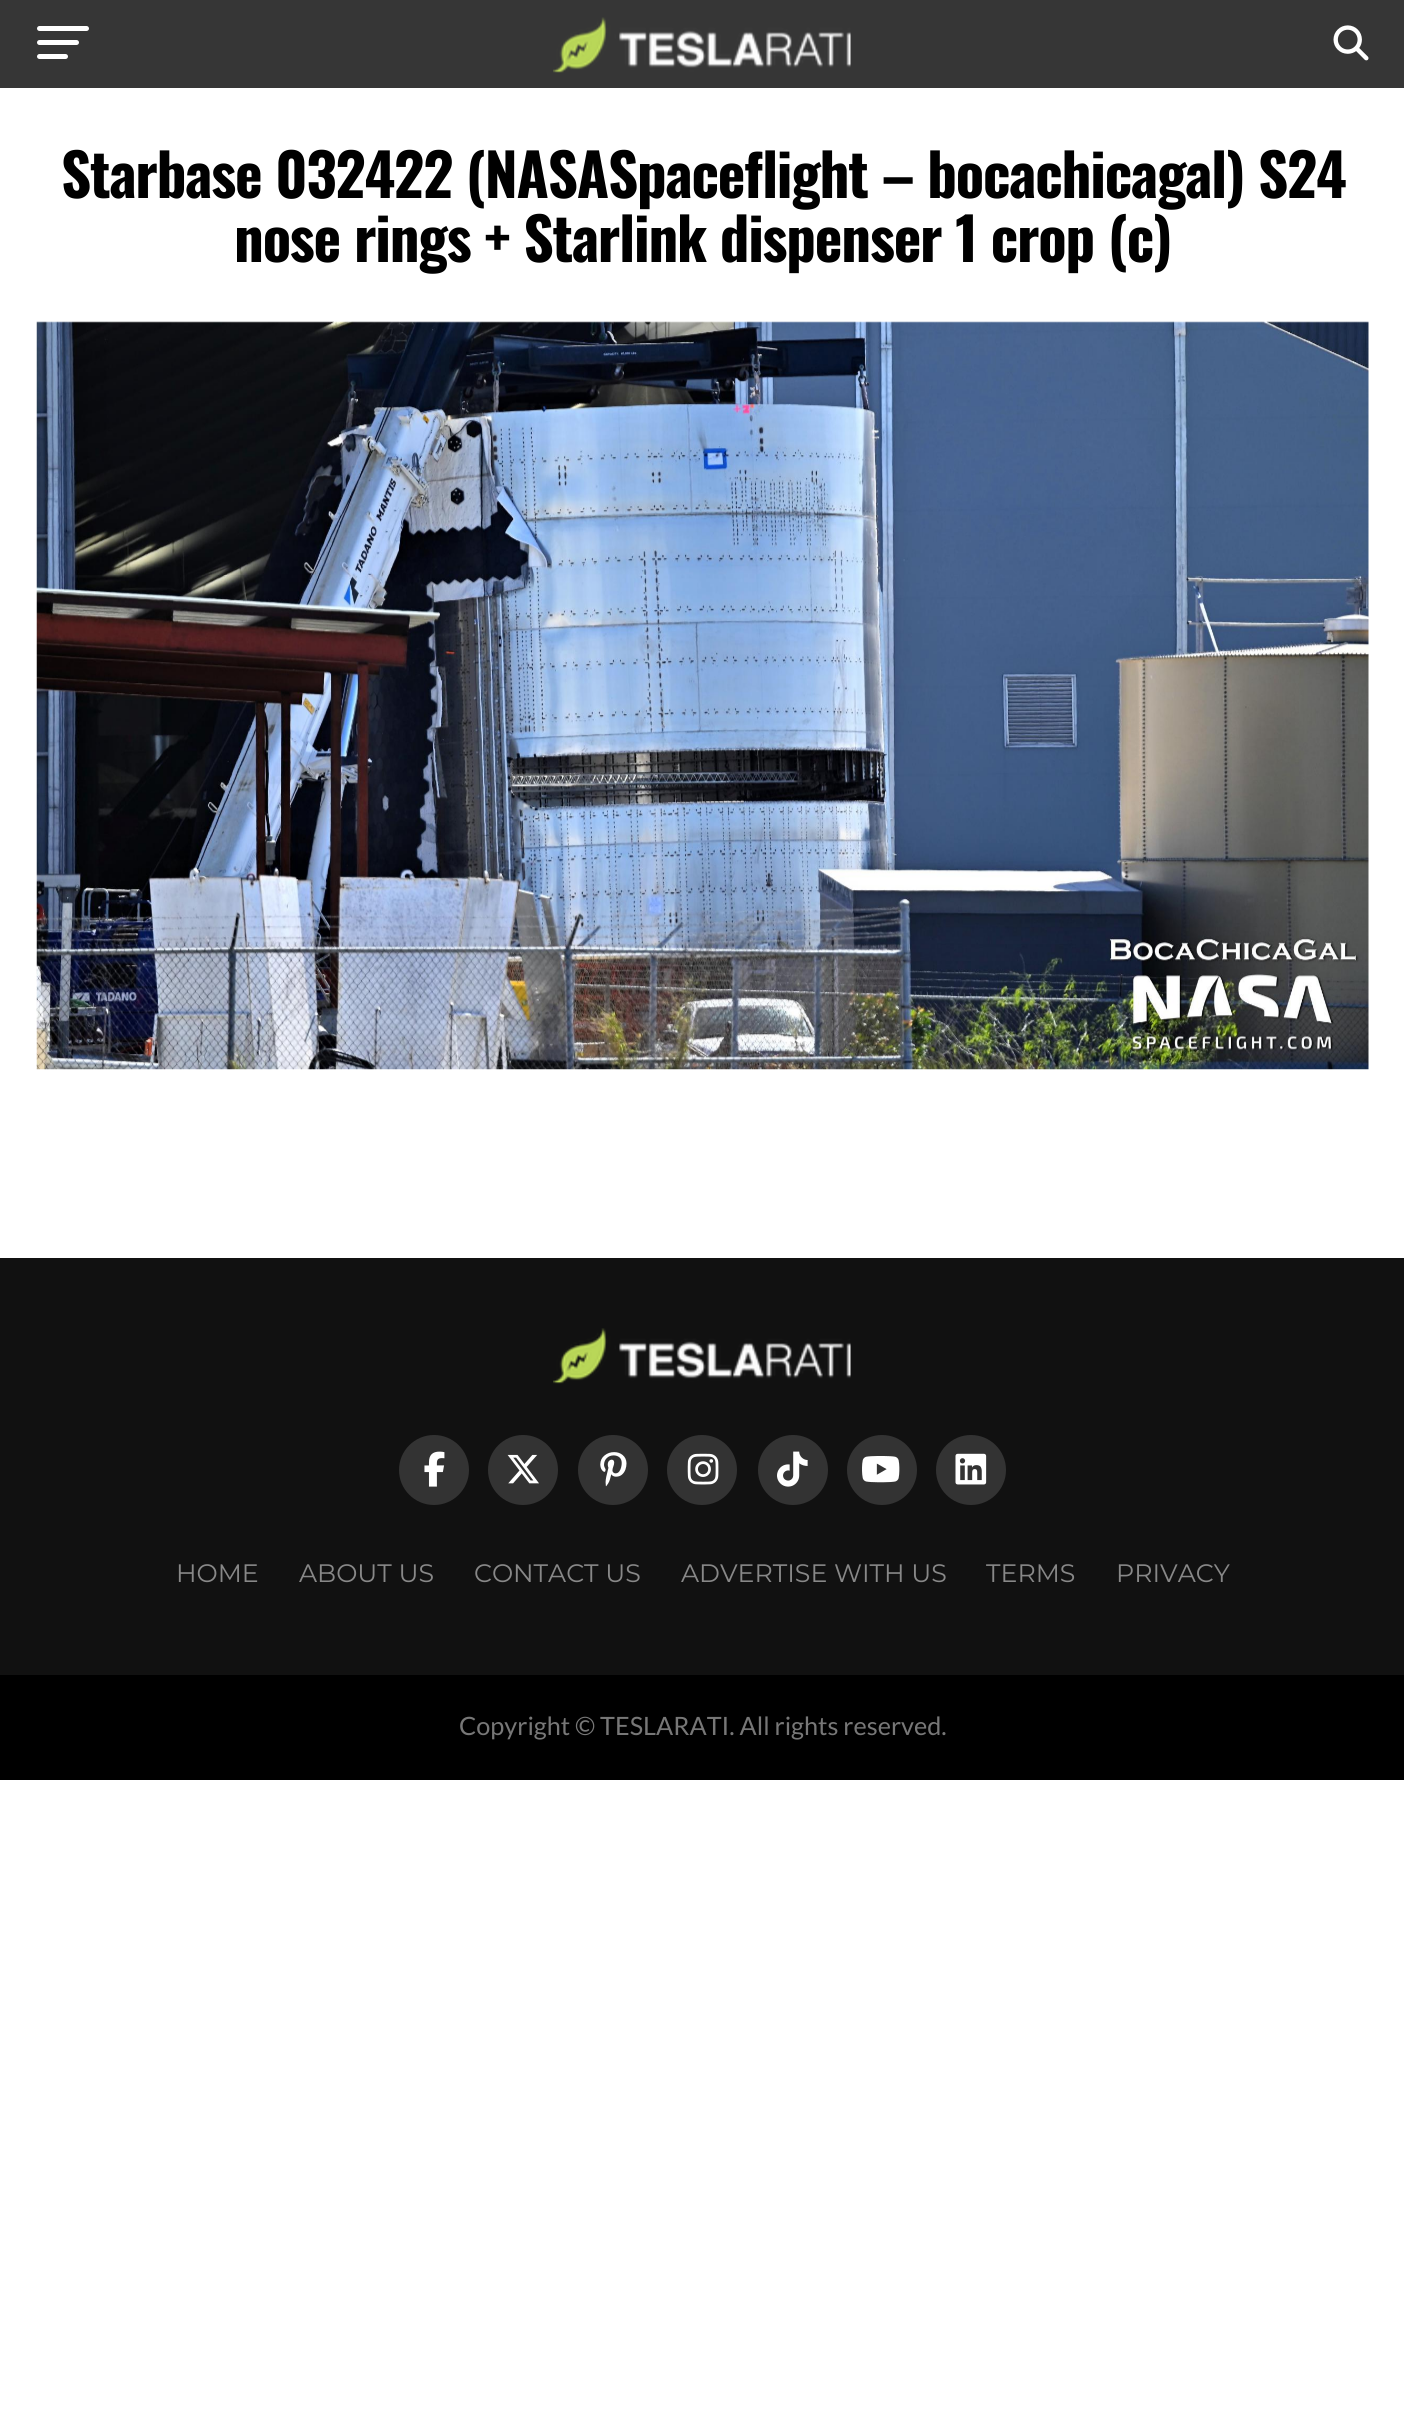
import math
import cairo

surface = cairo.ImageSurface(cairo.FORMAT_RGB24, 1404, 2422)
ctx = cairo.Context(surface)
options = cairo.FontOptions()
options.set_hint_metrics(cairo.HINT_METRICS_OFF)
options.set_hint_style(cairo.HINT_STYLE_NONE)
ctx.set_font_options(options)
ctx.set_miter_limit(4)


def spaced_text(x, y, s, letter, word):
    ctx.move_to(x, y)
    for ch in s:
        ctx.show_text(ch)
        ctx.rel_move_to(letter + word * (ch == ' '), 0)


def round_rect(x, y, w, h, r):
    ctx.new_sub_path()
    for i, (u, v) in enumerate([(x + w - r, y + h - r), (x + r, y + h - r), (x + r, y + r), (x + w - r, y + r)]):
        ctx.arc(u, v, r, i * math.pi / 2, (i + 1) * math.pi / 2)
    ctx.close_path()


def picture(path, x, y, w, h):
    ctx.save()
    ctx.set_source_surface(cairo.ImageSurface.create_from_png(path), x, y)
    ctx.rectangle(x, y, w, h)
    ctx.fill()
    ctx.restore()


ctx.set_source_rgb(1, 1, 1)
ctx.paint()
ctx.set_source_rgb(0.212, 0.212, 0.212)
ctx.rectangle(0, 0, 1404, 88)
ctx.fill()
ctx.set_source_rgb(1, 1, 1)
round_rect(37, 26, 52, 5, 2.5)
ctx.fill()
round_rect(37, 40, 42, 5, 2.5)
ctx.fill()
round_rect(37, 54, 31, 5, 2.5)
ctx.fill()
picture("img1.png", 553, 17, 298, 56)
picture("img2.png", 1333, 25, 36, 36)
ctx.select_font_face("Oswald", cairo.FONT_SLANT_NORMAL, cairo.FONT_WEIGHT_BOLD)
ctx.set_font_size(58.8)
ctx.set_source_rgb(0, 0, 0)
spaced_text(61, 198, "Starbase 032422 (NASASpaceflight – bocachicagal) S24", -1.18, 0)
spaced_text(234, 262, "nose rings + Starlink dispenser 1 crop (c)", -1.18, 0)
picture("img3.png", 36, 321, 1333, 749)
ctx.set_source_rgb(0.067, 0.067, 0.067)
ctx.rectangle(0, 1258, 1404, 417)
ctx.fill()
picture("img4.png", 553, 1328, 298, 56)
ctx.set_source_rgb(0.2, 0.2, 0.2)
ctx.arc(434, 1470, 35, 0, 2 * math.pi)
ctx.fill()
picture("img5.png", 424, 1451, 21, 36)
ctx.arc(523, 1470, 35, 0, 2 * math.pi)
ctx.fill()
picture("img6.png", 507, 1454, 32, 30)
ctx.arc(613, 1470, 35, 0, 2 * math.pi)
ctx.fill()
picture("img7.png", 600, 1452, 27, 35)
ctx.arc(702, 1470, 35, 0, 2 * math.pi)
ctx.fill()
picture("img8.png", 687, 1453, 32, 32)
ctx.arc(793, 1470, 35, 0, 2 * math.pi)
ctx.fill()
picture("img9.png", 777, 1451, 31, 36)
ctx.arc(882, 1470, 35, 0, 2 * math.pi)
ctx.fill()
picture("img10.png", 862, 1456, 38, 27)
ctx.arc(971, 1470, 35, 0, 2 * math.pi)
ctx.fill()
picture("img11.png", 955, 1453, 32, 32)
ctx.select_font_face("Montserrat")
ctx.set_font_size(25.25)
ctx.set_source_rgb(0.533, 0.533, 0.533)
ctx.move_to(176, 1582)
ctx.show_text("HOME")
ctx.move_to(299, 1582)
ctx.show_text("ABOUT US")
ctx.move_to(474, 1582)
ctx.show_text("CONTACT US")
ctx.move_to(681, 1582)
ctx.show_text("ADVERTISE WITH US")
ctx.move_to(986, 1582)
ctx.show_text("TERMS")
ctx.move_to(1116, 1582)
ctx.show_text("PRIVACY")
ctx.set_source_rgb(0, 0, 0)
ctx.rectangle(0, 1675, 1404, 105)
ctx.fill()
ctx.select_font_face("Lato")
ctx.set_source_rgb(0.467, 0.467, 0.467)
ctx.move_to(459, 1735)
ctx.show_text("Copyright © TESLARATI. All rights reserved.")
surface.write_to_png("page.png")
